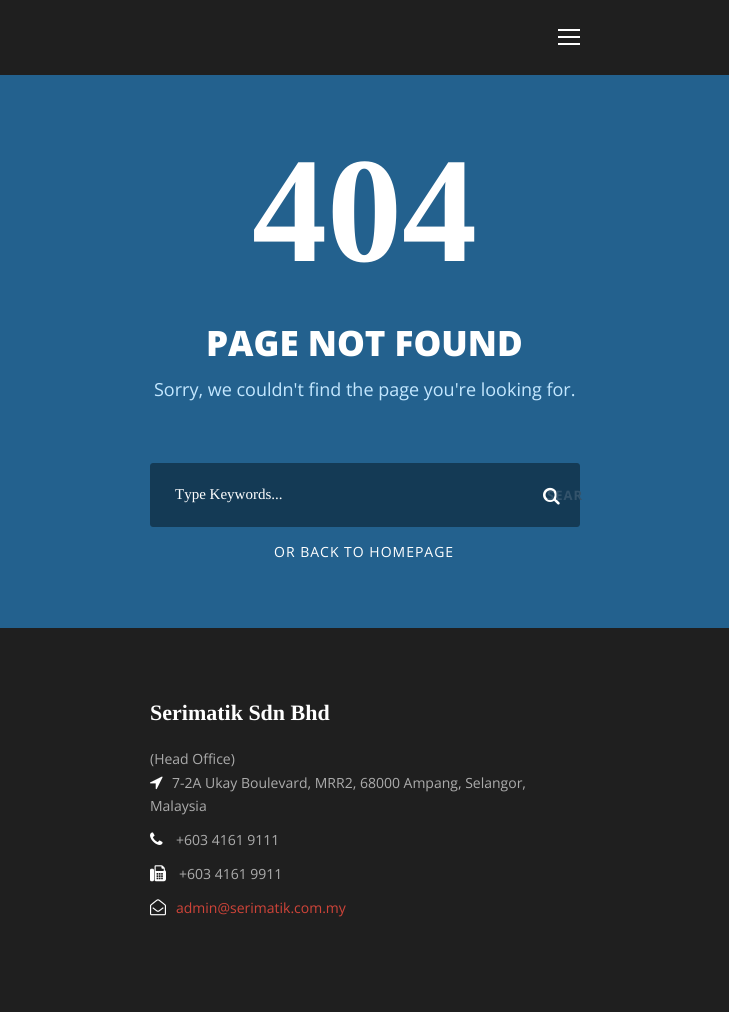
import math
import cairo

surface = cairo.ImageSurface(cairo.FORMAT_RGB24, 729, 1012)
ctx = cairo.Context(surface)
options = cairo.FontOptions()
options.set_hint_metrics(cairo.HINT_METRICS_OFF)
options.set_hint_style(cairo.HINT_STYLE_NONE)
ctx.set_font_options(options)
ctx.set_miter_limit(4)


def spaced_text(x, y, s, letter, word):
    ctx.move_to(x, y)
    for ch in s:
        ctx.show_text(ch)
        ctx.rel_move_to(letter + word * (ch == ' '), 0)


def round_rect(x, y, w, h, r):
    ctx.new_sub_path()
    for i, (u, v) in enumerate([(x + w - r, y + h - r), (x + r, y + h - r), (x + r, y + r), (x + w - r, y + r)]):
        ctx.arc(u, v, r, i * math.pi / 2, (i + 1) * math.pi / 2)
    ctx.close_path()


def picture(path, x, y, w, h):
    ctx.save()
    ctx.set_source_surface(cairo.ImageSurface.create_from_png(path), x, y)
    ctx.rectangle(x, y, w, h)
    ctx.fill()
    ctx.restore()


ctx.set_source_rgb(0.122, 0.122, 0.122)
ctx.paint()
ctx.set_source_rgb(1, 1, 1)
ctx.rectangle(558, 29, 22, 2)
ctx.fill()
ctx.rectangle(558, 36, 22, 2)
ctx.fill()
ctx.rectangle(558, 43, 22, 2)
ctx.fill()
ctx.set_source_rgb(0.137, 0.38, 0.557)
ctx.rectangle(0, 75, 729, 553)
ctx.fill()
ctx.select_font_face("Liberation Serif", cairo.FONT_SLANT_NORMAL, cairo.FONT_WEIGHT_BOLD)
ctx.set_font_size(150)
ctx.set_source_rgb(1, 1, 1)
ctx.move_to(252, 261)
ctx.show_text("404")
ctx.select_font_face("Open Sans ExtraBold")
ctx.set_font_size(35)
ctx.move_to(206, 356)
ctx.show_text("PAGE NOT FOUND")
ctx.select_font_face("Open Sans")
ctx.set_font_size(18)
ctx.set_source_rgb(0.765, 0.906, 1)
ctx.move_to(154, 396)
ctx.show_text("Sorry, we couldn't find the page you're looking for.")
ctx.set_source_rgb(0.082, 0.227, 0.333)
round_rect(150, 463, 430, 64, 3)
ctx.fill()
ctx.save()
ctx.rectangle(175, 486, 345, 17)
ctx.clip()
ctx.select_font_face("Liberation Serif")
ctx.set_font_size(15)
ctx.set_source_rgb(1, 1, 1)
ctx.move_to(175, 499)
ctx.show_text("Type Keywords...")
ctx.restore()
picture("img1.png", 543, 487, 17, 18)
ctx.select_font_face("Open Sans", cairo.FONT_SLANT_NORMAL, cairo.FONT_WEIGHT_BOLD)
ctx.set_font_size(13)
ctx.set_source_rgb(0.2, 0.325, 0.42)
spaced_text(547, 500, "SEAR", 1, 0)
ctx.select_font_face("Open Sans")
ctx.set_font_size(14)
ctx.set_source_rgb(1, 1, 1)
spaced_text(274, 557, "OR BACK TO HOMEPAGE", 1, 0)
ctx.select_font_face("Liberation Serif", cairo.FONT_SLANT_NORMAL, cairo.FONT_WEIGHT_BOLD)
ctx.set_font_size(22)
ctx.move_to(150, 720)
ctx.show_text("Serimatik Sdn Bhd")
ctx.select_font_face("Open Sans")
ctx.set_font_size(14)
ctx.set_source_rgb(0.671, 0.671, 0.671)
ctx.move_to(150, 764)
ctx.show_text("(Head Office)")
picture("img2.png", 150, 776, 13, 14)
ctx.move_to(172, 788)
ctx.show_text("7-2A Ukay Boulevard, MRR2, 68000 Ampang, Selangor,")
ctx.move_to(150, 811)
ctx.show_text("Malaysia")
picture("img3.png", 150, 832, 13, 13)
ctx.move_to(176, 845)
ctx.show_text("+603 4161 9111")
picture("img4.png", 150, 865, 16, 17)
ctx.move_to(179, 879)
ctx.show_text("+603 4161 9911")
picture("img5.png", 150, 899, 16, 17)
ctx.set_source_rgb(0.812, 0.263, 0.22)
ctx.move_to(176, 913)
ctx.show_text("admin@serimatik.com.my")
surface.write_to_png("page.png")
